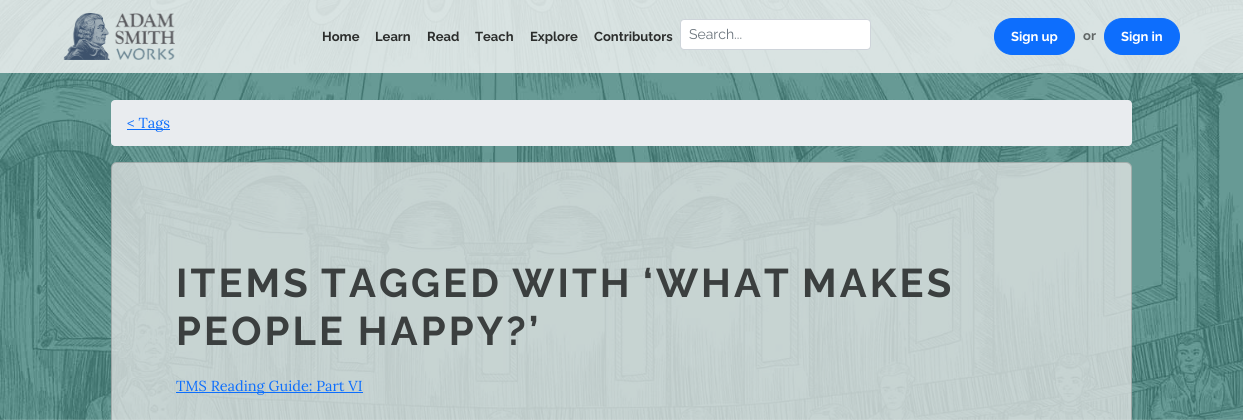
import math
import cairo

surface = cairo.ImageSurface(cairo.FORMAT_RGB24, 1243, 420)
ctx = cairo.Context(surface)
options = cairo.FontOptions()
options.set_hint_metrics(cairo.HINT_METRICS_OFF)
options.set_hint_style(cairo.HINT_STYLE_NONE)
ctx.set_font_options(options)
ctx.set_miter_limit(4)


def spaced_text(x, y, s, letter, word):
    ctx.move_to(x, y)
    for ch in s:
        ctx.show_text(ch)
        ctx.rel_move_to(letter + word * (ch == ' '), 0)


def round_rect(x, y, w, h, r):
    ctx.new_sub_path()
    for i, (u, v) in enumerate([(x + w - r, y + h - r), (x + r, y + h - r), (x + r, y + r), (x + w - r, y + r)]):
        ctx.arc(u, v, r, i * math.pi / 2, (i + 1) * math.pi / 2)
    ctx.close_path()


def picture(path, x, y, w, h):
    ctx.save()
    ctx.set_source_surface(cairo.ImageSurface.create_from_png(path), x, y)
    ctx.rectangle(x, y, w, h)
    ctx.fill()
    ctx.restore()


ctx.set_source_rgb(1, 1, 1)
ctx.paint()
picture("img2.png", 0, 0, 1243, 420)
ctx.set_source_rgba(0.961, 0.961, 0.961, 0.8)
ctx.rectangle(0, 0, 1243, 73)
ctx.fill()
picture("img1.png", 63, 13, 112, 47)
ctx.select_font_face("Raleway", cairo.FONT_SLANT_NORMAL, cairo.FONT_WEIGHT_BOLD)
ctx.set_font_size(13)
ctx.set_source_rgb(0.169, 0.176, 0.173)
ctx.move_to(322, 41)
ctx.show_text("Home")
ctx.move_to(375, 41)
ctx.show_text("Learn")
ctx.move_to(427, 41)
ctx.show_text("Read")
ctx.move_to(475, 41)
ctx.show_text("Teach")
ctx.move_to(530, 41)
ctx.show_text("Explore")
ctx.move_to(594, 41)
ctx.show_text("Contributors")
ctx.set_source_rgb(1, 1, 1)
round_rect(680.5, 19.5, 190, 30, 3.5)
ctx.fill_preserve()
ctx.set_source_rgb(0.808, 0.831, 0.855)
ctx.set_line_width(1)
ctx.stroke()
ctx.select_font_face("Raleway")
ctx.set_font_size(14)
ctx.set_source_rgb(0.424, 0.459, 0.49)
ctx.move_to(689, 39)
ctx.show_text("Search...")
ctx.set_source_rgb(0.051, 0.431, 0.992)
round_rect(994.5, 18.5, 80, 36, 18)
ctx.fill_preserve()
ctx.stroke()
ctx.select_font_face("Raleway", cairo.FONT_SLANT_NORMAL, cairo.FONT_WEIGHT_BOLD)
ctx.set_font_size(13)
ctx.set_source_rgb(1, 1, 1)
ctx.move_to(1011, 41)
ctx.show_text("Sign up")
ctx.set_source_rgb(0.38, 0.4, 0.396)
ctx.move_to(1083, 40)
ctx.show_text("or")
ctx.set_source_rgb(0.051, 0.431, 0.992)
round_rect(1104.5, 18.5, 75, 36, 18)
ctx.fill_preserve()
ctx.stroke()
ctx.set_source_rgb(1, 1, 1)
ctx.move_to(1121, 41)
ctx.show_text("Sign in")
ctx.set_source_rgb(0.914, 0.925, 0.937)
round_rect(111, 100, 1021, 46, 4)
ctx.fill()
ctx.set_source_rgb(0.051, 0.431, 0.992)
ctx.rectangle(127, 129, 43, 1)
ctx.fill()
ctx.select_font_face("Lora")
ctx.set_font_size(14.5)
ctx.move_to(127, 128)
ctx.show_text("< Tags")
ctx.set_source_rgba(0.902, 0.902, 0.902, 0.75)
round_rect(111, 162, 1021, 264, 6)
ctx.fill()
round_rect(111.5, 162.5, 1020, 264, 5.5)
ctx.set_source_rgba(0, 0, 0, 0.18)
ctx.stroke()
ctx.select_font_face("Raleway", cairo.FONT_SLANT_NORMAL, cairo.FONT_WEIGHT_BOLD)
ctx.set_font_size(40)
ctx.set_source_rgb(0.231, 0.247, 0.247)
spaced_text(176, 297, "ITEMS TAGGED WITH ‘WHAT MAKES", 3.1, -2.5)
spaced_text(176, 345, "PEOPLE HAPPY?’", 3.1, -1)
ctx.set_source_rgb(0.051, 0.431, 0.992)
ctx.rectangle(176, 392, 187, 1)
ctx.fill()
ctx.select_font_face("Lora")
ctx.set_font_size(14.5)
ctx.move_to(176, 391)
ctx.show_text("TMS Reading Guide: Part VI")
surface.write_to_png("page.png")
